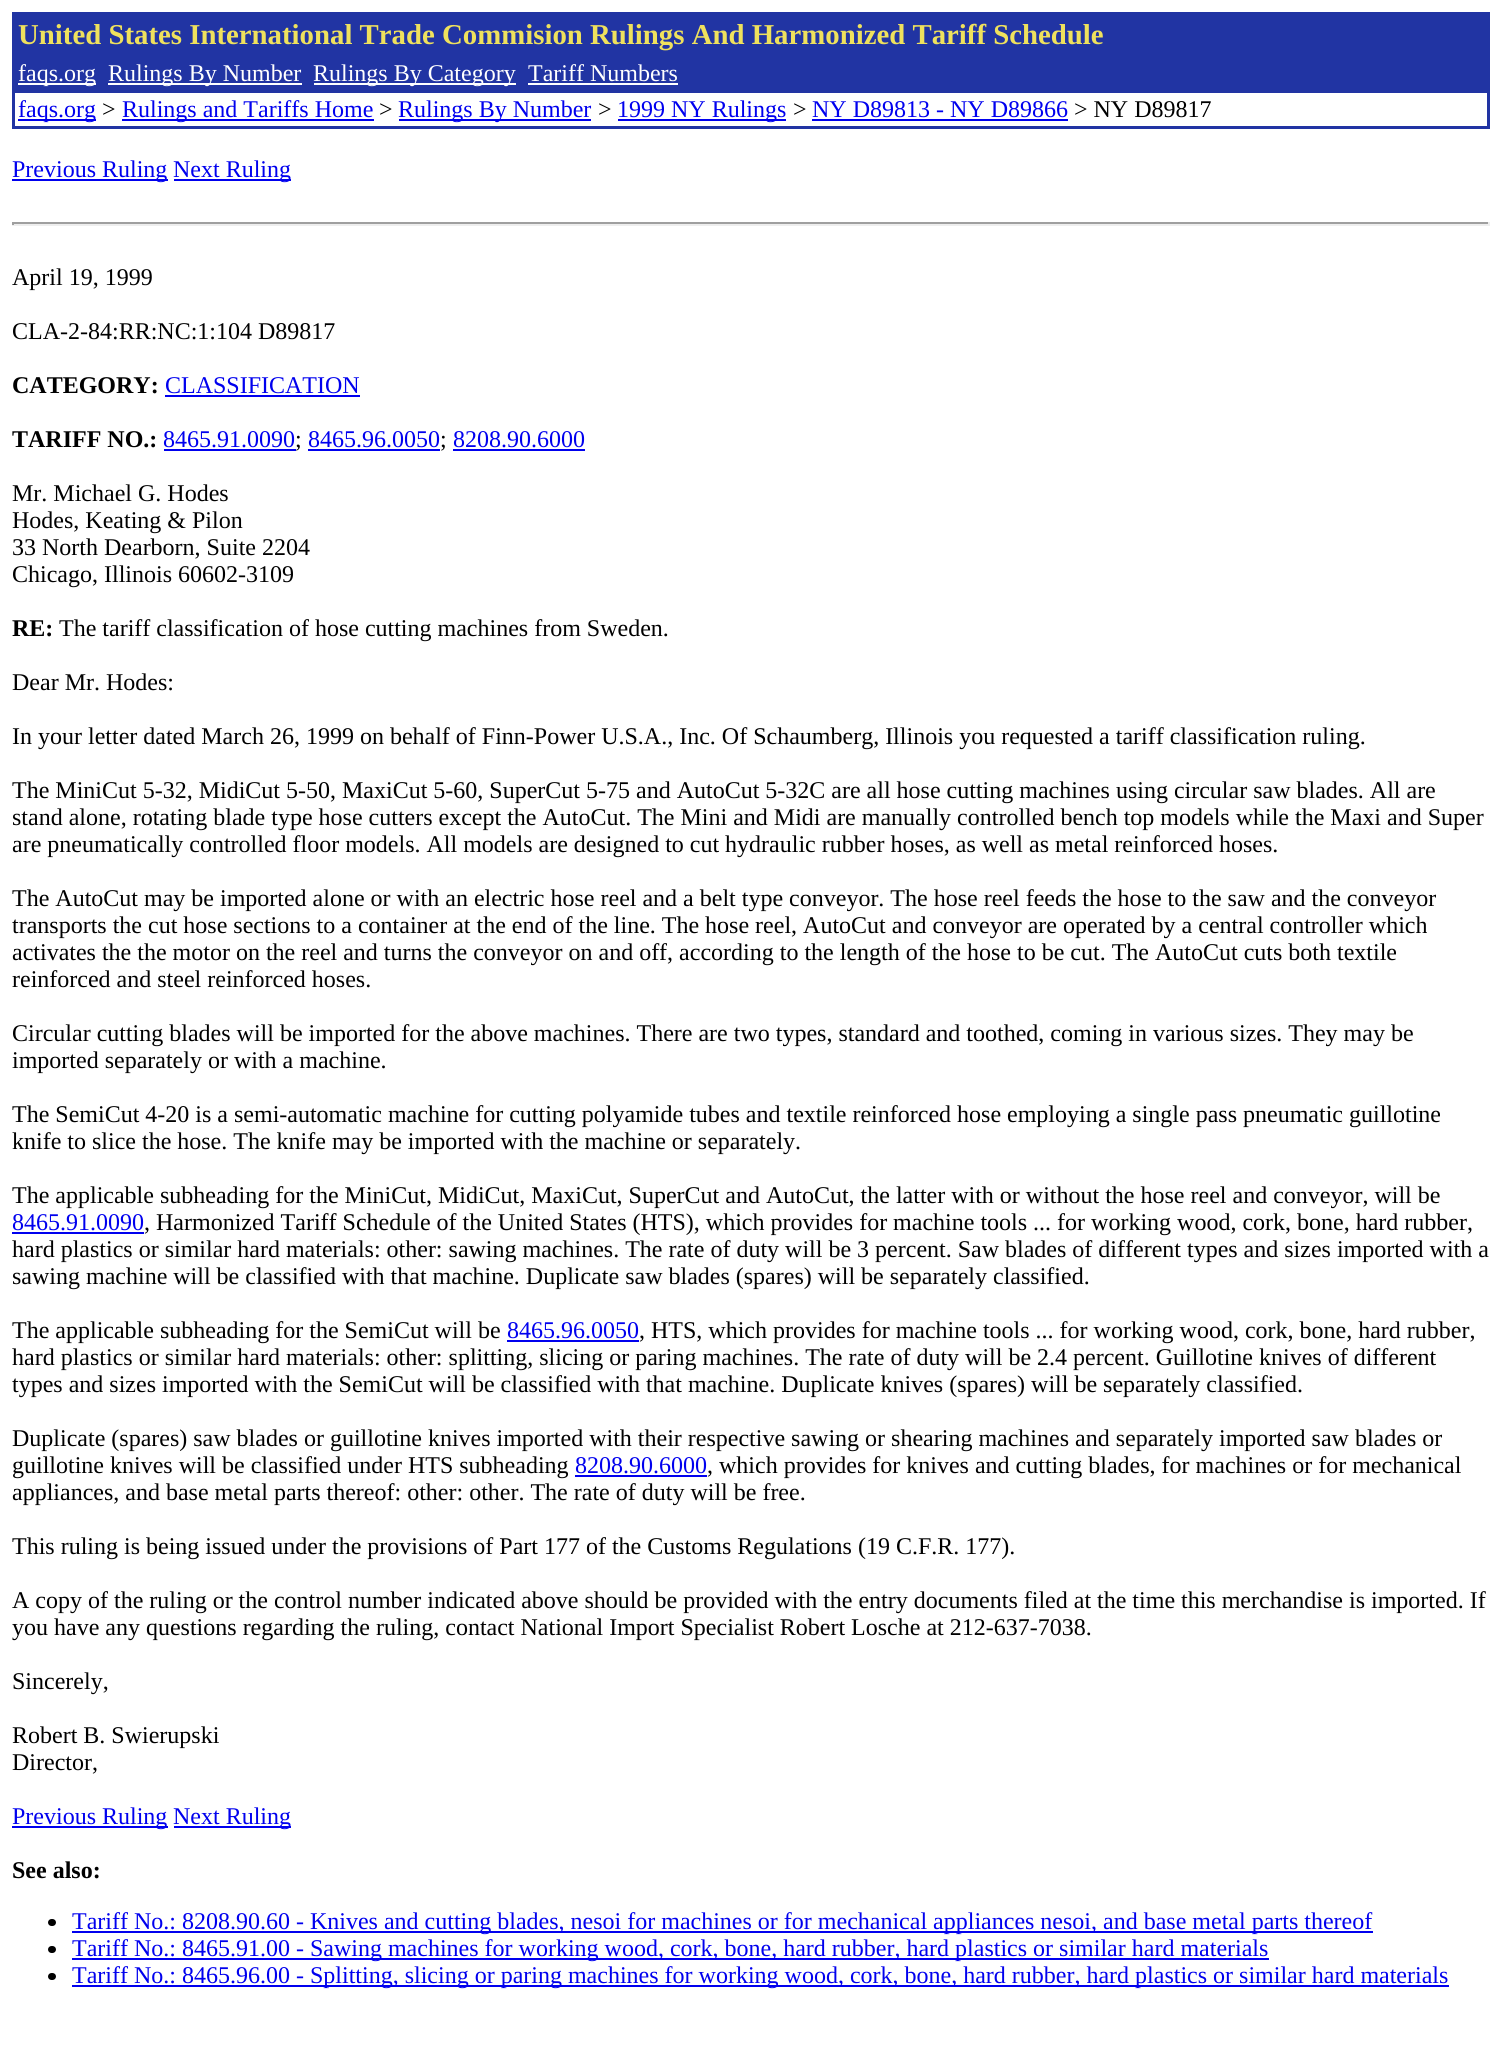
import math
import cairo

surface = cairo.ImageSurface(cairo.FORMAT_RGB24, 1501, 2066)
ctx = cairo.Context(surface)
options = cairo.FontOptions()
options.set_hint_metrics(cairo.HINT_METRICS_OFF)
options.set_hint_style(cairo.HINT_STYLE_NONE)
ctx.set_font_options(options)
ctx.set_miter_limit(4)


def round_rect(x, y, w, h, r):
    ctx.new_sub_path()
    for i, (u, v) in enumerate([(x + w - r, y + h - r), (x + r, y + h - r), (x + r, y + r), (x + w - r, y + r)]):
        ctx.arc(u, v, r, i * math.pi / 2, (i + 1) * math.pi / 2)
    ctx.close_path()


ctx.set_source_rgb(1, 1, 1)
ctx.paint()
ctx.set_source_rgb(0.129, 0.204, 0.639)
ctx.rectangle(12, 12, 1478, 117)
ctx.fill()
ctx.select_font_face("Liberation Serif", cairo.FONT_SLANT_NORMAL, cairo.FONT_WEIGHT_BOLD)
ctx.set_font_size(28.8)
ctx.set_source_rgb(0.937, 0.882, 0.365)
ctx.move_to(18, 44)
ctx.show_text("United States International Trade Commision Rulings And Harmonized Tariff Schedule")
ctx.set_source_rgb(1, 1, 1)
ctx.rectangle(18, 83, 78, 2)
ctx.fill()
ctx.select_font_face("Liberation Serif")
ctx.set_font_size(24)
ctx.move_to(18, 81)
ctx.show_text("faqs.org")
ctx.rectangle(108, 83, 194, 2)
ctx.fill()
ctx.move_to(108, 81)
ctx.show_text("Rulings By Number")
ctx.rectangle(314, 83, 202, 2)
ctx.fill()
ctx.move_to(313, 81)
ctx.show_text("Rulings By Category")
ctx.move_to(528, 81)
ctx.show_text("Tariff Numbers")
ctx.rectangle(528, 83, 150, 2)
ctx.fill()
ctx.rectangle(15, 93, 1472, 33)
ctx.fill()
ctx.set_source_rgb(0, 0, 0.933)
ctx.rectangle(18, 119, 78, 2)
ctx.fill()
ctx.move_to(18, 117)
ctx.show_text("faqs.org")
ctx.set_source_rgb(0, 0, 0)
ctx.move_to(102, 117)
ctx.show_text(">")
ctx.set_source_rgb(0, 0, 0.933)
ctx.rectangle(122, 119, 252, 2)
ctx.fill()
ctx.move_to(122, 117)
ctx.show_text("Rulings and Tariffs Home")
ctx.set_source_rgb(0, 0, 0)
ctx.move_to(379, 117)
ctx.show_text(">")
ctx.set_source_rgb(0, 0, 0.933)
ctx.rectangle(399, 119, 192, 2)
ctx.fill()
ctx.move_to(398, 117)
ctx.show_text("Rulings By Number")
ctx.set_source_rgb(0, 0, 0)
ctx.move_to(598, 117)
ctx.show_text(">")
ctx.set_source_rgb(0, 0, 0.933)
ctx.rectangle(618, 119, 168, 2)
ctx.fill()
ctx.move_to(617, 117)
ctx.show_text("1999 NY Rulings")
ctx.set_source_rgb(0, 0, 0)
ctx.move_to(793, 117)
ctx.show_text(">")
ctx.set_source_rgb(0, 0, 0.933)
ctx.move_to(812, 117)
ctx.show_text("NY D89813 - NY D89866")
ctx.rectangle(812, 119, 256, 2)
ctx.fill()
ctx.set_source_rgb(0, 0, 0)
ctx.move_to(1074, 117)
ctx.show_text("> NY D89817")
ctx.set_source_rgb(0, 0, 0.933)
ctx.rectangle(12, 179, 156, 2)
ctx.fill()
ctx.move_to(12, 177)
ctx.show_text("Previous Ruling")
ctx.rectangle(174, 179, 117, 2)
ctx.fill()
ctx.move_to(173, 177)
ctx.show_text("Next Ruling")
ctx.set_source_rgb(0.624, 0.624, 0.624)
ctx.rectangle(12, 222, 1478, 2)
ctx.fill()
ctx.set_source_rgb(0.933, 0.933, 0.933)
ctx.rectangle(1488, 222, 2, 3)
ctx.fill()
ctx.rectangle(12, 224, 1478, 2)
ctx.fill()
ctx.set_source_rgb(0.624, 0.624, 0.624)
ctx.rectangle(12, 222, 2, 3)
ctx.fill()
ctx.set_source_rgb(0, 0, 0)
ctx.move_to(12, 285)
ctx.show_text("April 19, 1999")
ctx.move_to(12, 339)
ctx.show_text("CLA-2-84:RR:NC:1:104 D89817")
ctx.select_font_face("Liberation Serif", cairo.FONT_SLANT_NORMAL, cairo.FONT_WEIGHT_BOLD)
ctx.move_to(12, 393)
ctx.show_text("CATEGORY:")
ctx.select_font_face("Liberation Serif")
ctx.set_source_rgb(0, 0, 0.933)
ctx.move_to(165, 393)
ctx.show_text("CLASSIFICATION")
ctx.rectangle(165, 395, 195, 2)
ctx.fill()
ctx.select_font_face("Liberation Serif", cairo.FONT_SLANT_NORMAL, cairo.FONT_WEIGHT_BOLD)
ctx.set_source_rgb(0, 0, 0)
ctx.move_to(12, 447)
ctx.show_text("TARIFF NO.:")
ctx.select_font_face("Liberation Serif")
ctx.set_source_rgb(0, 0, 0.933)
ctx.move_to(163, 447)
ctx.show_text("8465.91.0090")
ctx.rectangle(164, 449, 132, 2)
ctx.fill()
ctx.set_source_rgb(0, 0, 0)
ctx.move_to(295, 447)
ctx.show_text(";")
ctx.set_source_rgb(0, 0, 0.933)
ctx.move_to(308, 447)
ctx.show_text("8465.96.0050")
ctx.rectangle(308, 449, 132, 2)
ctx.fill()
ctx.set_source_rgb(0, 0, 0)
ctx.move_to(440, 447)
ctx.show_text(";")
ctx.set_source_rgb(0, 0, 0.933)
ctx.move_to(453, 447)
ctx.show_text("8208.90.6000")
ctx.rectangle(453, 449, 132, 2)
ctx.fill()
ctx.set_source_rgb(0, 0, 0)
ctx.move_to(12, 501)
ctx.show_text("Mr. Michael G. Hodes")
ctx.move_to(12, 528)
ctx.show_text("Hodes, Keating & Pilon")
ctx.move_to(12, 555)
ctx.show_text("33 North Dearborn, Suite 2204")
ctx.move_to(12, 582)
ctx.show_text("Chicago, Illinois 60602-3109")
ctx.select_font_face("Liberation Serif", cairo.FONT_SLANT_NORMAL, cairo.FONT_WEIGHT_BOLD)
ctx.move_to(12, 636)
ctx.show_text("RE:")
ctx.select_font_face("Liberation Serif")
ctx.move_to(59, 636)
ctx.show_text("The tariff classification of hose cutting machines from Sweden.")
ctx.move_to(12, 690)
ctx.show_text("Dear Mr. Hodes:")
ctx.move_to(12, 744)
ctx.show_text("In your letter dated March 26, 1999 on behalf of Finn-Power U.S.A., Inc. Of Schaumberg, Illinois you requested a tariff classification ruling.")
ctx.move_to(12, 798)
ctx.show_text("The MiniCut 5-32, MidiCut 5-50, MaxiCut 5-60, SuperCut 5-75 and AutoCut 5-32C are all hose cutting machines using circular saw blades. All are")
ctx.move_to(12, 825)
ctx.show_text("stand alone, rotating blade type hose cutters except the AutoCut. The Mini and Midi are manually controlled bench top models while the Maxi and Super")
ctx.move_to(12, 852)
ctx.show_text("are pneumatically controlled floor models. All models are designed to cut hydraulic rubber hoses, as well as metal reinforced hoses.")
ctx.move_to(12, 906)
ctx.show_text("The AutoCut may be imported alone or with an electric hose reel and a belt type conveyor. The hose reel feeds the hose to the saw and the conveyor")
ctx.move_to(12, 933)
ctx.show_text("transports the cut hose sections to a container at the end of the line. The hose reel, AutoCut and conveyor are operated by a central controller which")
ctx.move_to(12, 960)
ctx.show_text("activates the the motor on the reel and turns the conveyor on and off, according to the length of the hose to be cut. The AutoCut cuts both textile")
ctx.move_to(12, 987)
ctx.show_text("reinforced and steel reinforced hoses.")
ctx.move_to(12, 1041)
ctx.show_text("Circular cutting blades will be imported for the above machines. There are two types, standard and toothed, coming in various sizes. They may be")
ctx.move_to(12, 1068)
ctx.show_text("imported separately or with a machine.")
ctx.move_to(12, 1122)
ctx.show_text("The SemiCut 4-20 is a semi-automatic machine for cutting polyamide tubes and textile reinforced hose employing a single pass pneumatic guillotine")
ctx.move_to(12, 1149)
ctx.show_text("knife to slice the hose. The knife may be imported with the machine or separately.")
ctx.move_to(12, 1203)
ctx.show_text("The applicable subheading for the MiniCut, MidiCut, MaxiCut, SuperCut and AutoCut, the latter with or without the hose reel and conveyor, will be")
ctx.set_source_rgb(0, 0, 0.933)
ctx.move_to(12, 1230)
ctx.show_text("8465.91.0090")
ctx.rectangle(12, 1232, 132, 2)
ctx.fill()
ctx.set_source_rgb(0, 0, 0)
ctx.move_to(144, 1230)
ctx.show_text(", Harmonized Tariff Schedule of the United States (HTS), which provides for machine tools ... for working wood, cork, bone, hard rubber,")
ctx.move_to(12, 1257)
ctx.show_text("hard plastics or similar hard materials: other: sawing machines. The rate of duty will be 3 percent. Saw blades of different types and sizes imported with a")
ctx.move_to(12, 1284)
ctx.show_text("sawing machine will be classified with that machine. Duplicate saw blades (spares) will be separately classified.")
ctx.move_to(12, 1338)
ctx.show_text("The applicable subheading for the SemiCut will be")
ctx.set_source_rgb(0, 0, 0.933)
ctx.move_to(507, 1338)
ctx.show_text("8465.96.0050")
ctx.rectangle(507, 1340, 132, 2)
ctx.fill()
ctx.set_source_rgb(0, 0, 0)
ctx.move_to(639, 1338)
ctx.show_text(", HTS, which provides for machine tools ... for working wood, cork, bone, hard rubber,")
ctx.move_to(12, 1365)
ctx.show_text("hard plastics or similar hard materials: other: splitting, slicing or paring machines. The rate of duty will be 2.4 percent. Guillotine knives of different")
ctx.move_to(12, 1392)
ctx.show_text("types and sizes imported with the SemiCut will be classified with that machine. Duplicate knives (spares) will be separately classified.")
ctx.move_to(12, 1446)
ctx.show_text("Duplicate (spares) saw blades or guillotine knives imported with their respective sawing or shearing machines and separately imported saw blades or")
ctx.move_to(12, 1473)
ctx.show_text("guillotine knives will be classified under HTS subheading")
ctx.set_source_rgb(0, 0, 0.933)
ctx.move_to(575, 1473)
ctx.show_text("8208.90.6000")
ctx.rectangle(575, 1475, 132, 2)
ctx.fill()
ctx.set_source_rgb(0, 0, 0)
ctx.move_to(707, 1473)
ctx.show_text(", which provides for knives and cutting blades, for machines or for mechanical")
ctx.move_to(12, 1500)
ctx.show_text("appliances, and base metal parts thereof: other: other. The rate of duty will be free.")
ctx.move_to(12, 1554)
ctx.show_text("This ruling is being issued under the provisions of Part 177 of the Customs Regulations (19 C.F.R. 177).")
ctx.move_to(12, 1608)
ctx.show_text("A copy of the ruling or the control number indicated above should be provided with the entry documents filed at the time this merchandise is imported. If")
ctx.move_to(12, 1635)
ctx.show_text("you have any questions regarding the ruling, contact National Import Specialist Robert Losche at 212-637-7038.")
ctx.move_to(12, 1689)
ctx.show_text("Sincerely,")
ctx.move_to(12, 1743)
ctx.show_text("Robert B. Swierupski")
ctx.move_to(12, 1770)
ctx.show_text("Director,")
ctx.set_source_rgb(0, 0, 0.933)
ctx.rectangle(12, 1826, 156, 2)
ctx.fill()
ctx.move_to(12, 1824)
ctx.show_text("Previous Ruling")
ctx.rectangle(174, 1826, 117, 2)
ctx.fill()
ctx.move_to(173, 1824)
ctx.show_text("Next Ruling")
ctx.select_font_face("Liberation Serif", cairo.FONT_SLANT_NORMAL, cairo.FONT_WEIGHT_BOLD)
ctx.set_source_rgb(0, 0, 0)
ctx.move_to(12, 1878)
ctx.show_text("See also:")
round_rect(48, 1919, 8, 7, 3.5)
ctx.fill()
ctx.set_source_rgb(0, 0, 0.933)
ctx.rectangle(72, 1931, 1301, 2)
ctx.fill()
ctx.select_font_face("Liberation Serif")
ctx.move_to(72, 1929)
ctx.show_text("Tariff No.: 8208.90.60 - Knives and cutting blades, nesoi for machines or for mechanical appliances nesoi, and base metal parts thereof")
ctx.set_source_rgb(0, 0, 0)
round_rect(48, 1946, 8, 7, 3.5)
ctx.fill()
ctx.set_source_rgb(0, 0, 0.933)
ctx.rectangle(72, 1958, 1197, 2)
ctx.fill()
ctx.move_to(72, 1956)
ctx.show_text("Tariff No.: 8465.91.00 - Sawing machines for working wood, cork, bone, hard rubber, hard plastics or similar hard materials")
ctx.set_source_rgb(0, 0, 0)
round_rect(48, 1973, 8, 7, 3.5)
ctx.fill()
ctx.set_source_rgb(0, 0, 0.933)
ctx.rectangle(72, 1985, 1377, 2)
ctx.fill()
ctx.move_to(72, 1983)
ctx.show_text("Tariff No.: 8465.96.00 - Splitting, slicing or paring machines for working wood, cork, bone, hard rubber, hard plastics or similar hard materials")
surface.write_to_png("page.png")
